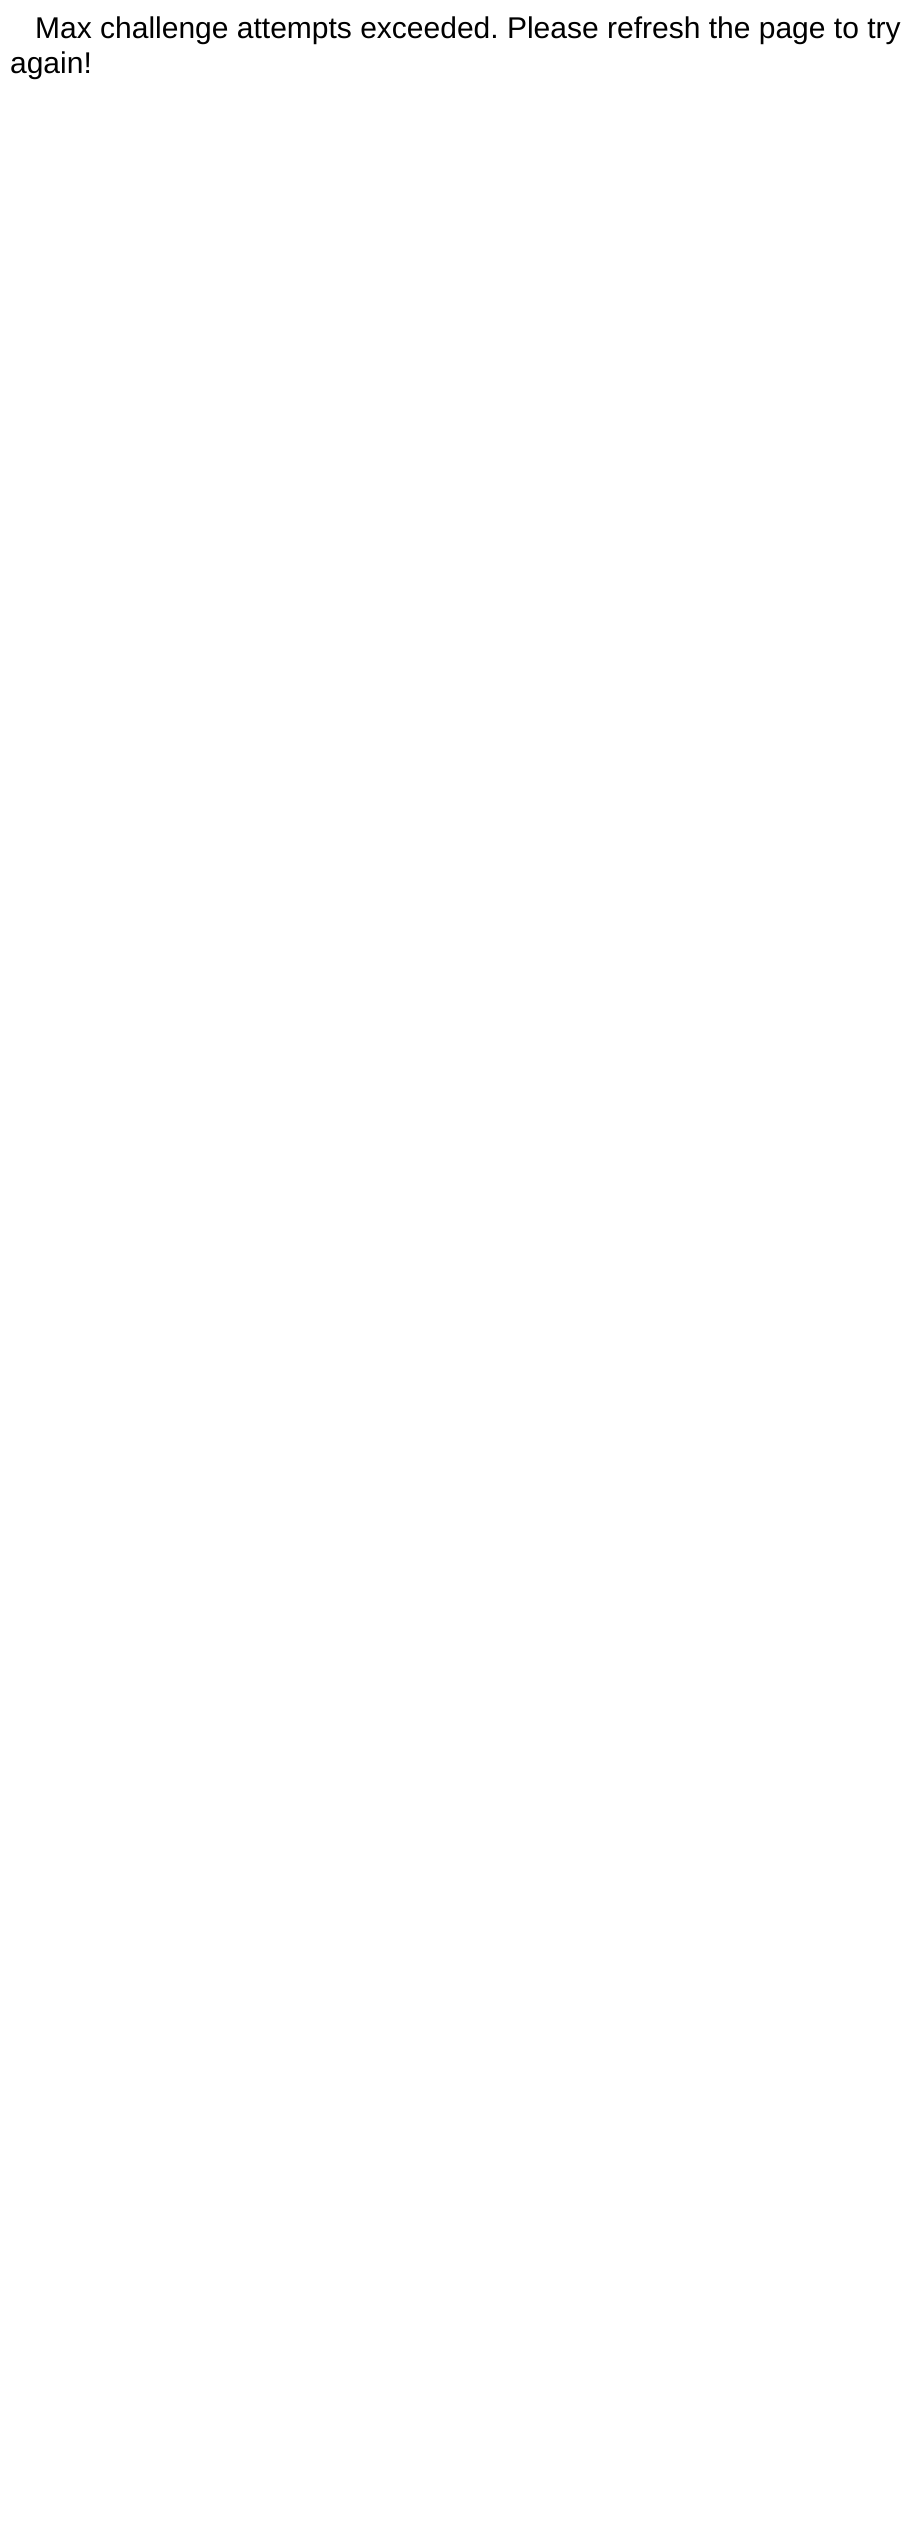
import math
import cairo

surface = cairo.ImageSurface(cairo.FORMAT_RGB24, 911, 2526)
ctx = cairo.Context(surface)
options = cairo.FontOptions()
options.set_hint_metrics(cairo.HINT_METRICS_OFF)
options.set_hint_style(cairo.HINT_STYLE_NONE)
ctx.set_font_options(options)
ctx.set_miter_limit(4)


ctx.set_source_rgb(1, 1, 1)
ctx.paint()
ctx.select_font_face("Liberation Sans")
ctx.set_font_size(30)
ctx.set_source_rgb(0, 0, 0)
ctx.move_to(35, 38)
ctx.show_text("Max challenge attempts exceeded. Please refresh the page to try")
ctx.move_to(10, 73)
ctx.show_text("again!")
surface.write_to_png("page.png")
